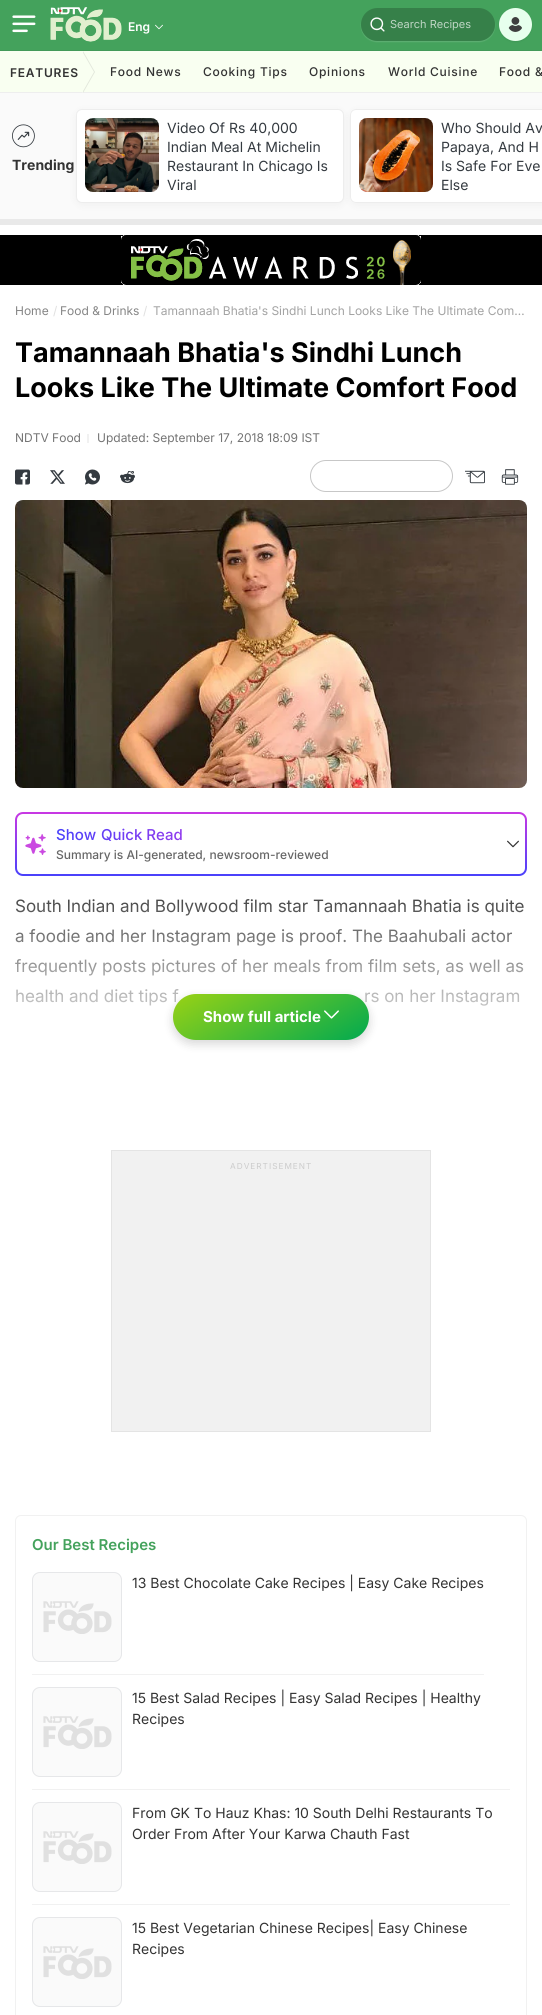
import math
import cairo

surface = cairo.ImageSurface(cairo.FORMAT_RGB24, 542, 2015)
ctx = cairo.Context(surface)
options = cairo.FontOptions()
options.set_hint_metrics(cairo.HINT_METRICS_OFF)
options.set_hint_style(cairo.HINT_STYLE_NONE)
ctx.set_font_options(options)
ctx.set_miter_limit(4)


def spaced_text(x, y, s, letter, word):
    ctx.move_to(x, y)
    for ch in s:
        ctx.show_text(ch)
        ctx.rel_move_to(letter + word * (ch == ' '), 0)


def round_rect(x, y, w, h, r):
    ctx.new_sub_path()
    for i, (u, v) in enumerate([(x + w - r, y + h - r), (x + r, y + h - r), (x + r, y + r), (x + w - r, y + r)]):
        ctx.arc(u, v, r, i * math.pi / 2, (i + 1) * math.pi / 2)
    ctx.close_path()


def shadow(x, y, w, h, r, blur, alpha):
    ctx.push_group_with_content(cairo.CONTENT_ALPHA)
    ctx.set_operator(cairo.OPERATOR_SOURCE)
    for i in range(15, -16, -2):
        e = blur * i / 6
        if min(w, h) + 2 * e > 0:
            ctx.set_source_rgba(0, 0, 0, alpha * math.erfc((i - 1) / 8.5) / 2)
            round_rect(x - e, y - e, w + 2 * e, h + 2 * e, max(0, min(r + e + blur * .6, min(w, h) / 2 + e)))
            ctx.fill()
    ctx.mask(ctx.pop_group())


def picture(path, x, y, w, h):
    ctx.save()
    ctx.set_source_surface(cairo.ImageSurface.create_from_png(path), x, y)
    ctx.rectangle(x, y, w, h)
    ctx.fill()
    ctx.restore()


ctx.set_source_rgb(1, 1, 1)
ctx.paint()
ctx.set_source_rgb(0.267, 0.635, 0.361)
ctx.rectangle(0, 0, 542, 50)
ctx.fill()
ctx.set_source_rgb(0.263, 0.604, 0.349)
ctx.rectangle(0, 50, 542, 1)
ctx.fill()
picture("img1.png", 12, 15, 24, 18)
picture("img2.png", 50, 7, 72, 35)
ctx.select_font_face("Inter SemiBold")
ctx.set_font_size(12)
ctx.set_source_rgb(1, 1, 1)
ctx.move_to(128, 31)
ctx.show_text("Eng")
picture("img3.png", 155, 24, 8, 6)
ctx.save()
ctx.set_fill_rule(cairo.FILL_RULE_EVEN_ODD)
ctx.new_path()
ctx.move_to(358, 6)
ctx.line_to(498, 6)
ctx.line_to(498, 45)
ctx.line_to(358, 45)
ctx.close_path()
ctx.move_to(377.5, 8)
ctx.line_to(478.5, 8)
ctx.curve_to(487.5, 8, 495, 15.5, 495, 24.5)
ctx.curve_to(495, 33.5, 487.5, 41, 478.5, 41)
ctx.line_to(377.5, 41)
ctx.curve_to(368.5, 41, 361, 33.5, 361, 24.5)
ctx.curve_to(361, 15.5, 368.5, 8, 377.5, 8)
ctx.close_path()
ctx.clip()
ctx.set_source_rgb(1, 1, 1)
shadow(361, 9, 134, 33, 16.5, 0.5, 0.14)
ctx.restore()
ctx.set_source_rgba(0, 0, 0, 0.21)
round_rect(361, 8, 134, 33, 16.5)
ctx.fill()
picture("img4.png", 370, 17, 15, 15)
ctx.select_font_face("Inter")
ctx.set_font_size(11)
ctx.set_source_rgb(0.749, 0.839, 0.773)
ctx.move_to(390, 28)
ctx.show_text("Search Recipes")
ctx.set_source_rgb(0, 0, 0)
shadow(499, 9, 33, 33, 16.5, 1, 0.07)
ctx.set_source_rgb(0.906, 1, 0.929)
ctx.arc(515.5, 24.5, 15.5, 0, 2 * math.pi)
ctx.fill_preserve()
ctx.set_source_rgb(0.91, 1, 0.929)
ctx.stroke()
picture("img5.png", 508, 17, 14, 15)
ctx.set_source_rgb(0.976, 1, 0.945)
ctx.rectangle(0, 51, 542, 41)
ctx.fill()
ctx.set_source_rgb(0.933, 0.933, 0.933)
ctx.rectangle(0, 92, 542, 1)
ctx.fill()
ctx.select_font_face("Inter SemiBold")
ctx.set_font_size(12)
ctx.set_source_rgb(0.2, 0.2, 0.2)
spaced_text(10, 77, "FEATURES", 0.75, 0)
ctx.set_source_rgb(0.886, 0.906, 0.859)
ctx.new_path()
ctx.move_to(83, 93)
ctx.line_to(83, 51)
ctx.line_to(95, 72)
ctx.close_path()
ctx.fill()
ctx.set_source_rgb(0.976, 1, 0.945)
ctx.new_path()
ctx.move_to(82, 93)
ctx.line_to(82, 51)
ctx.line_to(94, 72)
ctx.close_path()
ctx.fill()
ctx.select_font_face("Inter Medium")
ctx.set_source_rgb(0.2, 0.2, 0.2)
spaced_text(110, 76, "Food News", 0.75, 0)
spaced_text(203, 76, "Cooking Tips", 0.75, 0)
spaced_text(309, 76, "Opinions", 0.75, 0)
spaced_text(388, 76, "World Cuisine", 0.75, 0)
spaced_text(499, 76, "Food &", 0.75, 0)
ctx.set_source_rgb(0.98, 0.98, 0.98)
ctx.rectangle(0, 93, 542, 126)
ctx.fill()
ctx.set_source_rgb(0.914, 0.914, 0.914)
ctx.rectangle(0, 219, 542, 6)
ctx.fill()
picture("img6.png", 12, 124, 23, 24)
ctx.select_font_face("Inter", cairo.FONT_SLANT_NORMAL, cairo.FONT_WEIGHT_BOLD)
ctx.set_font_size(14)
ctx.set_source_rgb(0.2, 0.2, 0.2)
ctx.move_to(12, 170)
ctx.show_text("Trending")
ctx.set_source_rgb(0, 0, 0)
shadow(76, 111, 268, 94, 6, 5, 0.04)
ctx.set_source_rgb(1, 1, 1)
round_rect(76.5, 109.5, 267, 93, 5.5)
ctx.fill_preserve()
ctx.set_source_rgb(0.929, 0.929, 0.929)
ctx.set_line_width(1)
ctx.stroke()
ctx.set_source_rgb(0.98, 0.98, 0.98)
round_rect(85, 118, 74, 74, 8)
ctx.fill()
picture("img7.png", 85, 118, 74, 74)
ctx.select_font_face("Inter")
ctx.set_source_rgb(0.204, 0.227, 0.251)
ctx.move_to(167, 133)
ctx.show_text("Video Of Rs 40,000")
ctx.move_to(167, 152)
ctx.show_text("Indian Meal At Michelin")
ctx.move_to(167, 171)
ctx.show_text("Restaurant In Chicago Is")
ctx.move_to(167, 190)
ctx.show_text("Viral")
ctx.set_source_rgb(0, 0, 0)
shadow(350, 111, 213, 94, 6, 5, 0.04)
ctx.set_source_rgb(1, 1, 1)
ctx.new_path()
ctx.move_to(356, 109)
ctx.line_to(542, 109)
ctx.line_to(542, 203)
ctx.line_to(356, 203)
ctx.curve_to(352.5, 203, 350, 200.5, 350, 197)
ctx.line_to(350, 115)
ctx.curve_to(350, 111.5, 352.5, 109, 356, 109)
ctx.close_path()
ctx.fill()
round_rect(350.5, 109.5, 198, 93, 5.5)
ctx.set_source_rgb(0.929, 0.929, 0.929)
ctx.stroke()
ctx.set_source_rgb(0.98, 0.98, 0.98)
round_rect(359, 118, 74, 74, 8)
ctx.fill()
picture("img8.png", 359, 118, 74, 74)
ctx.set_source_rgb(0.204, 0.227, 0.251)
ctx.move_to(441, 133)
ctx.show_text("Who Should Av")
ctx.move_to(441, 152)
ctx.show_text("Papaya, And H")
ctx.move_to(441, 171)
ctx.show_text("Is Safe For Eve")
ctx.move_to(441, 190)
ctx.show_text("Else")
ctx.set_source_rgb(0, 0, 0)
ctx.rectangle(0, 235, 542, 50)
ctx.fill()
picture("img9.png", 121, 235, 300, 50)
ctx.set_font_size(12)
ctx.set_source_rgb(0.522, 0.522, 0.522)
ctx.move_to(15, 315)
ctx.show_text("Home")
ctx.set_source_rgb(0.878, 0.878, 0.878)
ctx.move_to(53, 315)
ctx.show_text("/")
ctx.set_source_rgb(0.522, 0.522, 0.522)
ctx.move_to(60, 315)
ctx.show_text("Food & Drinks")
ctx.set_source_rgb(0.878, 0.878, 0.878)
ctx.move_to(143, 315)
ctx.show_text("/")
ctx.set_source_rgb(0.639, 0.639, 0.639)
ctx.move_to(153, 315)
ctx.show_text("Tamannaah Bhatia's Sindhi Lunch Looks Like The Ultimate Com…")
ctx.select_font_face("Inter", cairo.FONT_SLANT_NORMAL, cairo.FONT_WEIGHT_BOLD)
ctx.set_font_size(27)
ctx.set_source_rgb(0, 0, 0)
ctx.move_to(15, 362)
ctx.show_text("Tamannaah Bhatia's Sindhi Lunch")
ctx.move_to(15, 397)
ctx.show_text("Looks Like The Ultimate Comfort Food")
ctx.select_font_face("Inter")
ctx.set_font_size(12)
ctx.set_source_rgb(0.455, 0.455, 0.455)
ctx.move_to(15, 442)
ctx.show_text("NDTV Food")
ctx.set_source_rgb(0.945, 0.945, 0.945)
ctx.rectangle(87, 434, 2, 9)
ctx.fill()
ctx.set_source_rgb(0.455, 0.455, 0.455)
ctx.move_to(97, 442)
ctx.show_text("Updated: September 17, 2018 18:09 IST")
picture("img10.png", 15, 469, 15, 16)
picture("img11.png", 50, 470, 15, 14)
picture("img12.png", 85, 469, 15, 16)
picture("img13.png", 120, 471, 15, 13)
round_rect(310.5, 460.5, 142, 31, 15.5)
ctx.set_source_rgb(0.78, 0.78, 0.78)
ctx.stroke()
picture("img14.png", 465, 470, 20, 14)
picture("img15.png", 501, 469, 18, 16)
round_rect(15.5, 500.5, 511, 287, 7.5)
ctx.set_source_rgb(0.898, 0.906, 0.91)
ctx.stroke()
picture("img16.png", 15, 500, 512, 288)
gradient = cairo.LinearGradient(271, 812, 271, 876)
gradient.add_color_stop_rgba(0, 0.788, 0.22, 0.89, 1)
gradient.add_color_stop_rgba(1, 0.286, 0.255, 0.984, 1)
ctx.set_source(gradient)
round_rect(15, 812, 512, 64, 8)
ctx.fill()
ctx.set_source_rgb(1, 1, 1)
round_rect(17, 814, 508, 60, 6)
ctx.fill()
picture("img17.png", 25, 834, 21, 21)
ctx.select_font_face("Inter Medium")
ctx.set_font_size(15)
gradient = cairo.LinearGradient(504, 835, 56, 835)
gradient.add_color_stop_rgba(0, 0, 0.318, 1, 1)
gradient.add_color_stop_rgba(0.5, 0.788, 0.22, 0.89, 1)
gradient.add_color_stop_rgba(1, 0.286, 0.255, 0.984, 1)
ctx.set_source(gradient)
ctx.move_to(56, 840)
ctx.show_text("Show")
ctx.move_to(101, 840)
ctx.show_text("Quick Read")
ctx.set_font_size(12)
ctx.set_source_rgb(0.4, 0.4, 0.4)
ctx.move_to(56, 859)
ctx.show_text("Summary is AI-generated, newsroom-reviewed")
picture("img18.png", 507, 840, 12, 8)
ctx.select_font_face("Inter")
ctx.set_font_size(17)
ctx.set_source_rgb(0.2, 0.2, 0.2)
ctx.move_to(15, 912)
ctx.show_text("South Indian and Bollywood film star Tamannaah Bhatia is quite")
ctx.move_to(15, 942)
ctx.show_text("a foodie and her Instagram page is proof. The Baahubali actor")
ctx.move_to(15, 972)
ctx.show_text("frequently posts pictures of her meals from film sets, as well as")
ctx.move_to(15, 1002)
ctx.show_text("health and diet tips f")
ctx.move_to(364, 1002)
ctx.show_text("rs on her Instagram")
gradient = cairo.LinearGradient(271, 898, 271, 1108)
gradient.add_color_stop_rgba(0, 1, 1, 1, 0.1)
gradient.add_color_stop_rgba(0.4, 1, 1, 1, 0.6)
gradient.add_color_stop_rgba(0.82, 1, 1, 1, 1)
ctx.set_source(gradient)
ctx.rectangle(15, 899, 509, 107)
ctx.fill()
ctx.set_source_rgb(0, 0, 0)
shadow(173, 998, 196, 46, 23, 5, 0.16)
gradient = cairo.LinearGradient(237, 957, 305, 1077)
gradient.add_color_stop_rgba(0, 0.604, 0.824, 0.078, 1)
gradient.add_color_stop_rgba(1, 0, 0.663, 0.314, 1)
ctx.set_source(gradient)
round_rect(173, 994, 196, 46, 23)
ctx.fill()
ctx.select_font_face("Inter", cairo.FONT_SLANT_NORMAL, cairo.FONT_WEIGHT_BOLD)
ctx.set_font_size(15)
ctx.set_source_rgb(1, 1, 1)
ctx.move_to(203, 1022)
ctx.show_text("Show full article")
picture("img19.png", 324, 1010, 15, 9)
ctx.set_source_rgb(0.945, 0.945, 0.945)
ctx.rectangle(111.5, 1150.5, 319, 281)
ctx.fill_preserve()
ctx.set_source_rgb(0.894, 0.894, 0.894)
ctx.stroke()
ctx.select_font_face("Inter")
ctx.set_font_size(8.25)
ctx.set_source_rgb(0.8, 0.8, 0.8)
spaced_text(230, 1169, "ADVERTISEMENT", 1, 0)
round_rect(15.5, 1515.5, 511, 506, 5.5)
ctx.set_source_rgb(0.945, 0.945, 0.945)
ctx.stroke()
ctx.select_font_face("Inter SemiBold")
ctx.set_font_size(15)
ctx.set_source_rgb(0.267, 0.635, 0.361)
ctx.move_to(32, 1550)
ctx.show_text("Our Best Recipes")
ctx.set_source_rgb(0.945, 0.945, 0.945)
ctx.rectangle(32, 1674, 452, 1)
ctx.fill()
ctx.set_source_rgb(0.98, 0.98, 0.98)
round_rect(32, 1572, 90, 90, 8)
ctx.fill()
picture("img20.png", 43, 1601, 69, 33)
round_rect(32.5, 1572.5, 89, 89, 7.5)
ctx.set_source_rgb(0.902, 0.906, 0.914)
ctx.stroke()
ctx.select_font_face("Inter")
ctx.set_font_size(14)
ctx.set_source_rgb(0.2, 0.2, 0.2)
ctx.move_to(132, 1588)
ctx.show_text("13 Best Chocolate Cake Recipes | Easy Cake Recipes")
ctx.set_source_rgb(0.945, 0.945, 0.945)
ctx.rectangle(32, 1789, 478, 1)
ctx.fill()
ctx.set_source_rgb(0.98, 0.98, 0.98)
round_rect(32, 1687, 90, 90, 8)
ctx.fill()
picture("img20.png", 43, 1716, 69, 33)
round_rect(32.5, 1687.5, 89, 89, 7.5)
ctx.set_source_rgb(0.902, 0.906, 0.914)
ctx.stroke()
ctx.set_source_rgb(0.2, 0.2, 0.2)
ctx.move_to(132, 1703)
ctx.show_text("15 Best Salad Recipes | Easy Salad Recipes | Healthy")
ctx.move_to(132, 1724)
ctx.show_text("Recipes")
ctx.set_source_rgb(0.945, 0.945, 0.945)
ctx.rectangle(32, 1904, 478, 1)
ctx.fill()
ctx.set_source_rgb(0.98, 0.98, 0.98)
round_rect(32, 1802, 90, 90, 8)
ctx.fill()
picture("img20.png", 43, 1831, 69, 33)
round_rect(32.5, 1802.5, 89, 89, 7.5)
ctx.set_source_rgb(0.902, 0.906, 0.914)
ctx.stroke()
ctx.set_source_rgb(0.2, 0.2, 0.2)
ctx.move_to(132, 1818)
ctx.show_text("From GK To Hauz Khas: 10 South Delhi Restaurants To")
ctx.move_to(132, 1839)
ctx.show_text("Order From After Your Karwa Chauth Fast")
ctx.set_source_rgb(0.98, 0.98, 0.98)
round_rect(32, 1917, 90, 90, 8)
ctx.fill()
picture("img20.png", 43, 1946, 69, 33)
round_rect(32.5, 1917.5, 89, 89, 7.5)
ctx.set_source_rgb(0.902, 0.906, 0.914)
ctx.stroke()
ctx.set_source_rgb(0.2, 0.2, 0.2)
ctx.move_to(132, 1933)
ctx.show_text("15 Best Vegetarian Chinese Recipes| Easy Chinese")
ctx.move_to(132, 1954)
ctx.show_text("Recipes")
surface.write_to_png("page.png")
